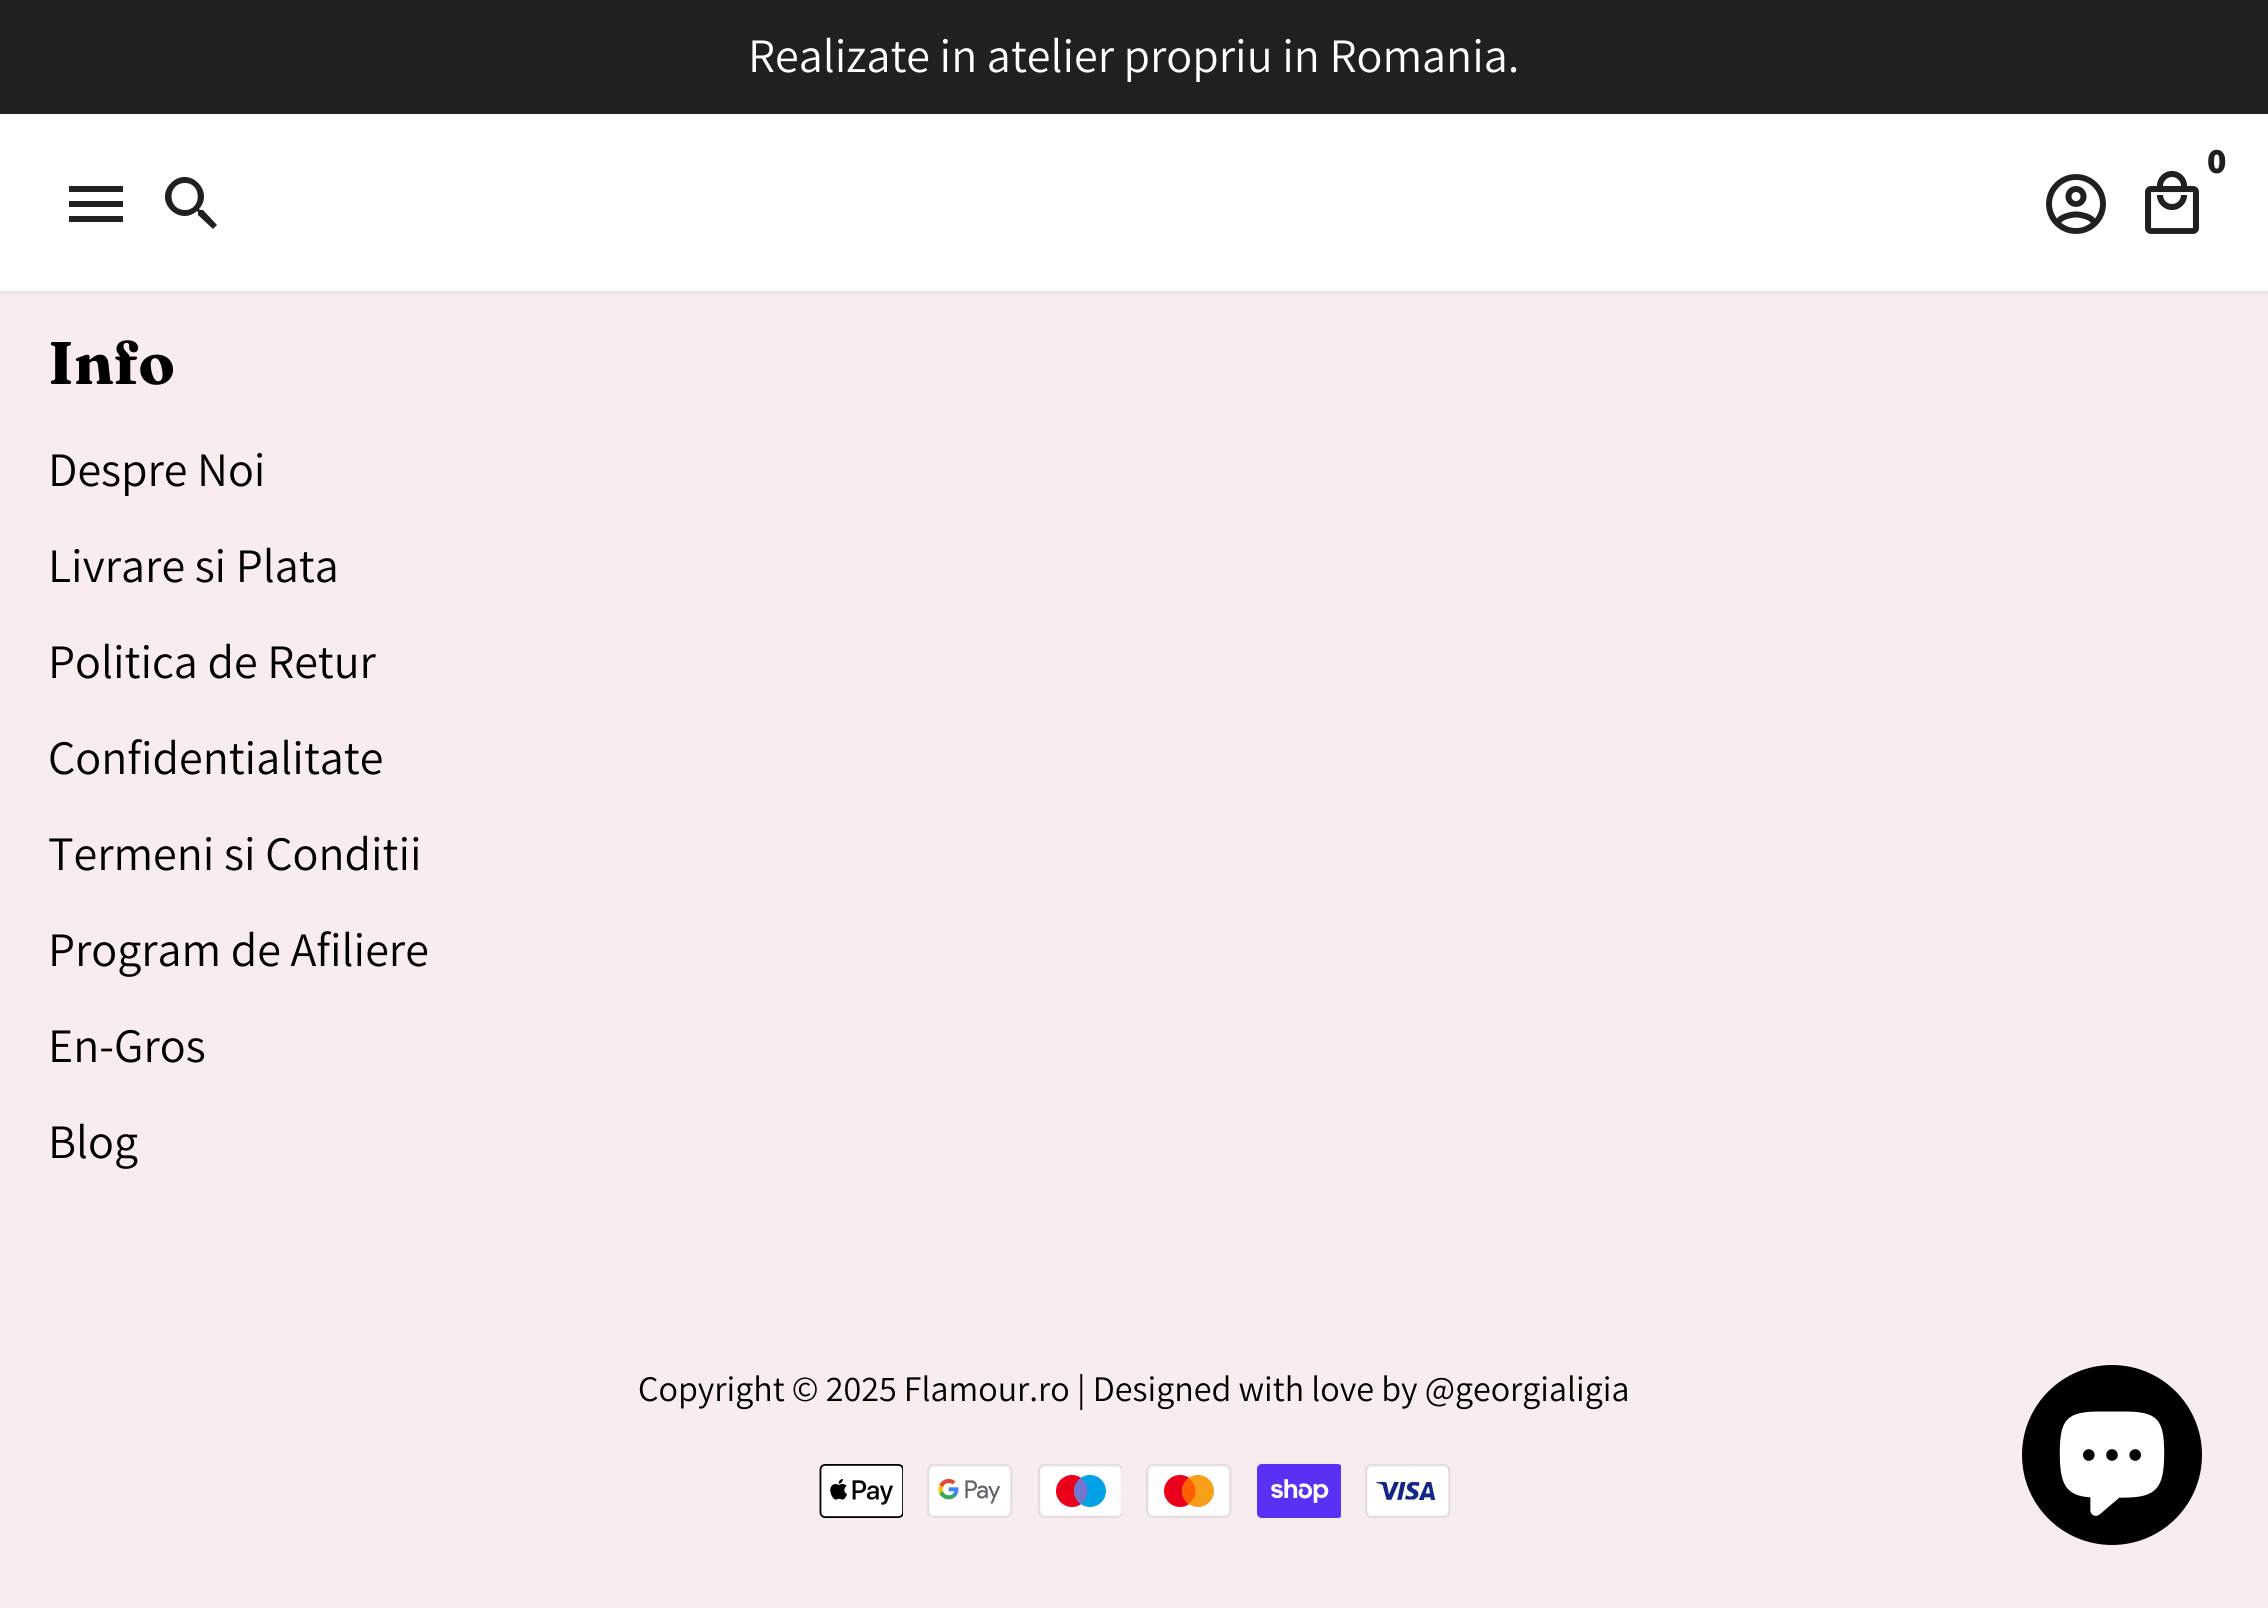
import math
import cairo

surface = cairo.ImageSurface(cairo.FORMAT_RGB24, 2268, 1608)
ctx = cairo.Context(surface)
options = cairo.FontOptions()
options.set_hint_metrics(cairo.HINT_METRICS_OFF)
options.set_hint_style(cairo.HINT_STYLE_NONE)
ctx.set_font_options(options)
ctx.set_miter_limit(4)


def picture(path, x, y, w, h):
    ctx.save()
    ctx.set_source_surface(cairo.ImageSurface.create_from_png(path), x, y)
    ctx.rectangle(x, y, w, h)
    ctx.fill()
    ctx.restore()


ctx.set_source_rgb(0.969, 0.925, 0.933)
ctx.paint()
ctx.set_source_rgb(0.125, 0.125, 0.125)
ctx.rectangle(0, 0, 2268, 114)
ctx.fill()
ctx.select_font_face("Assistant")
ctx.set_font_size(48)
ctx.set_source_rgb(1, 1, 1)
ctx.move_to(748, 72)
ctx.show_text("Realizate in atelier propriu in Romania.")
ctx.rectangle(0, 114, 2268, 177)
ctx.fill()
ctx.set_source_rgb(0.898, 0.898, 0.898)
ctx.rectangle(0, 291, 2268, 3)
ctx.fill()
ctx.select_font_face("Assistant ExtraBold")
ctx.set_font_size(36)
ctx.set_source_rgb(0.125, 0.125, 0.125)
ctx.move_to(2207, 173)
ctx.show_text("0")
picture("img1.png", 2145, 171, 54, 63)
picture("img2.png", 2046, 174, 60, 60)
ctx.new_path()
ctx.move_to(69, 222)
ctx.line_to(123, 222)
ctx.line_to(123, 216)
ctx.line_to(69, 216)
ctx.close_path()
ctx.move_to(69, 207)
ctx.line_to(123, 207)
ctx.line_to(123, 201)
ctx.line_to(69, 201)
ctx.close_path()
ctx.move_to(69, 186)
ctx.line_to(69, 192)
ctx.line_to(123, 192)
ctx.line_to(123, 186)
ctx.close_path()
ctx.fill()
ctx.new_path()
ctx.move_to(203, 210)
ctx.line_to(200, 210)
ctx.line_to(199, 209)
ctx.curve_to(215, 191, 189, 165, 171, 183)
ctx.curve_to(153, 201, 179, 227, 197, 211)
ctx.line_to(198, 212)
ctx.line_to(198, 215)
ctx.line_to(213, 229)
ctx.line_to(217, 225)
ctx.close_path()
ctx.move_to(185, 210)
ctx.curve_to(167, 210, 167, 183, 185, 183)
ctx.curve_to(202, 183, 202, 210, 185, 210)
ctx.close_path()
ctx.fill()
ctx.select_font_face("Fraunces", cairo.FONT_SLANT_NORMAL, cairo.FONT_WEIGHT_BOLD)
ctx.set_font_size(60)
ctx.set_source_rgb(0, 0, 0)
ctx.move_to(48, 384)
ctx.show_text("Info")
ctx.select_font_face("Assistant")
ctx.set_font_size(48)
ctx.move_to(48, 486)
ctx.show_text("Despre Noi")
ctx.move_to(48, 582)
ctx.show_text("Livrare si Plata")
ctx.move_to(48, 678)
ctx.show_text("Politica de Retur")
ctx.move_to(48, 774)
ctx.show_text("Confidentialitate")
ctx.move_to(48, 870)
ctx.show_text("Termeni si Conditii")
ctx.move_to(48, 966)
ctx.show_text("Program de Afiliere")
ctx.move_to(48, 1062)
ctx.show_text("En-Gros")
ctx.move_to(48, 1158)
ctx.show_text("Blog")
ctx.set_font_size(36)
ctx.move_to(638, 1401)
ctx.show_text("Copyright © 2025 Flamour.ro | Designed with love by @georgialigia")
picture("img3.png", 819, 1464, 84, 54)
picture("img4.png", 927, 1464, 86, 54)
picture("img5.png", 1038, 1464, 84, 54)
picture("img6.png", 1146, 1464, 86, 54)
picture("img7.png", 1257, 1464, 84, 54)
picture("img8.png", 1365, 1464, 86, 54)
ctx.arc(2112, 1455, 90, 0, 2 * math.pi)
ctx.fill()
picture("img9.png", 2059, 1411, 106, 105)
surface.write_to_png("page.png")
